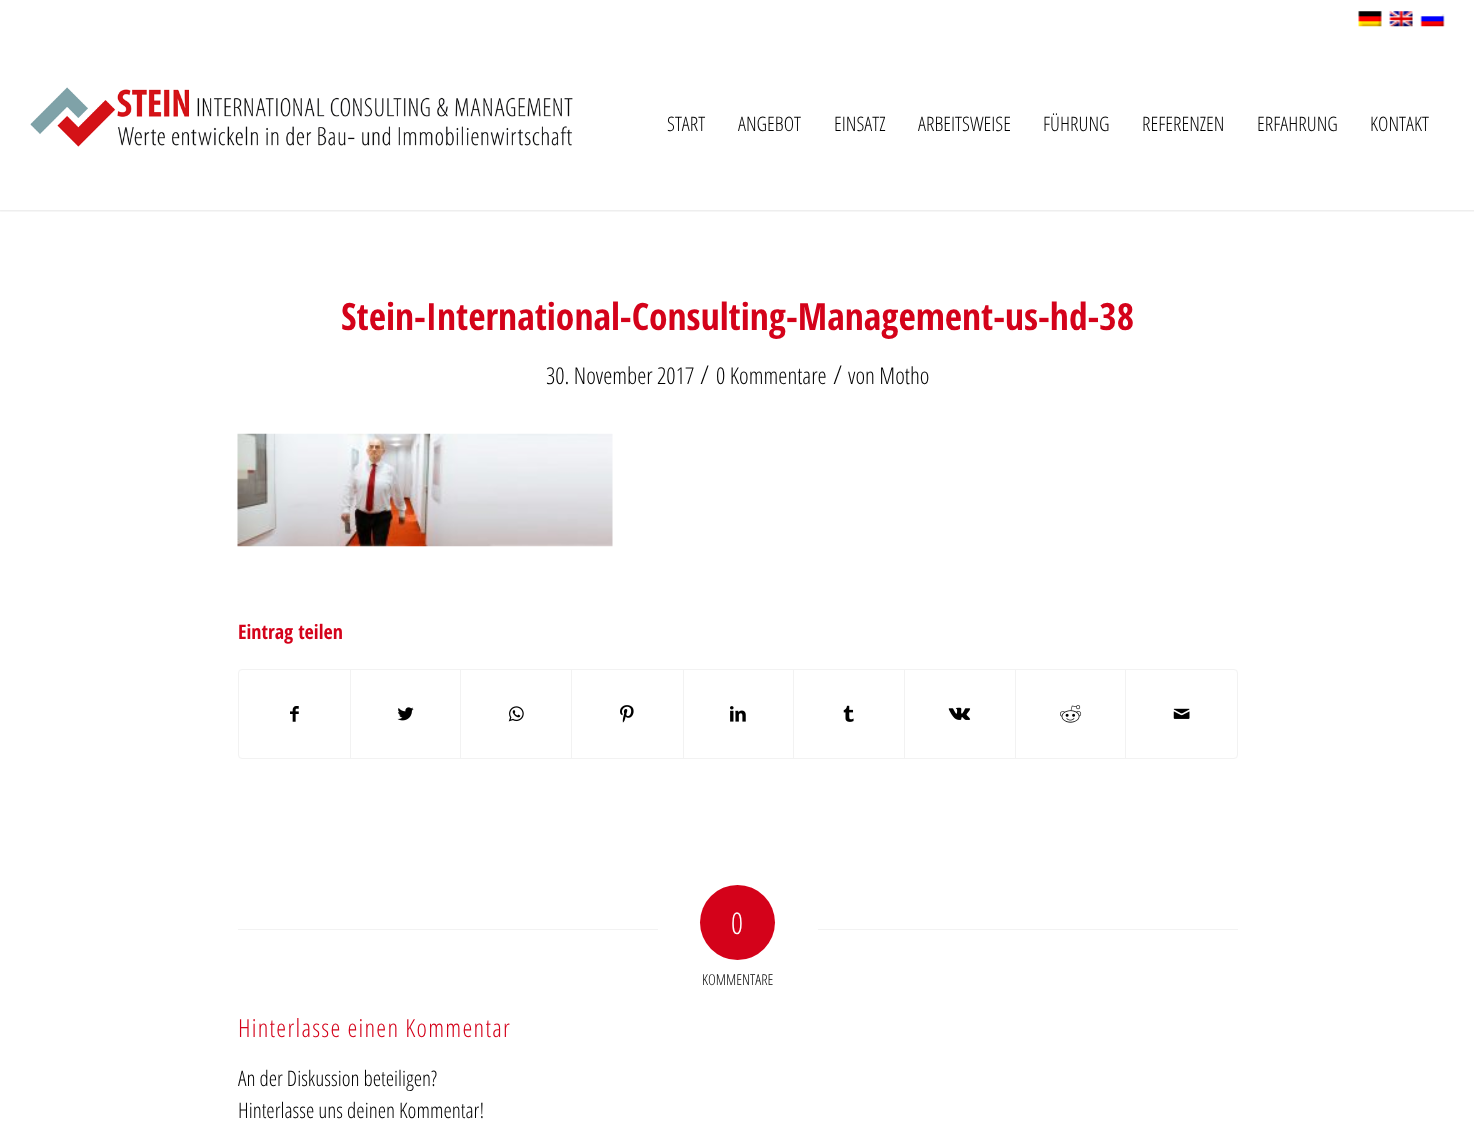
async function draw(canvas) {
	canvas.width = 1474;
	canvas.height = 1139;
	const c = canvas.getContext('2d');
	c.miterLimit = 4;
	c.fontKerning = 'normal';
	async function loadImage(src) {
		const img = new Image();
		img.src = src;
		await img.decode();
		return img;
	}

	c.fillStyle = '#fff';
	c.fillRect(0, 0, 1474, 1139);
	c.save();
	c.beginPath();
	c.rect(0, 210, 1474, 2);
	c.clip();
	c.fillStyle = '#0000001a';
	c.filter = 'blur(1px)';
	c.beginPath();
	c.rect(-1, -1, 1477, 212);
	c.fill();
	c.filter = 'none';
	c.restore();
	c.drawImage(await loadImage('img1.png'), 1358, 11, 24, 16);
	c.drawImage(await loadImage('img2.png'), 1389, 11, 24, 16);
	c.drawImage(await loadImage('img3.png'), 1420, 14, 25, 13);
	c.drawImage(await loadImage('img4.png'), 30, 87, 543, 60);
	c.font = '300 20px Open Sans Condensed';
	c.fillStyle = '#000';
	for (const [text, x, y] of [
		['START', 667, 131],
		['ANGEBOT', 738, 131],
		['EINSATZ', 834, 131],
		['ARBEITSWEISE', 918, 131],
		['FÜHRUNG', 1043, 131],
		['REFERENZEN', 1142, 131],
		['ERFAHRUNG', 1257, 131],
		['KONTAKT', 1370, 131],
	]) {
		c.fillText(text, x, y);
	}
	c.font = 'bold 37.5px Open Sans Condensed';
	c.fillStyle = '#d4021a';
	c.fillText('Stein-International-Consulting-Management-us-hd-38', 341, 330);
	c.font = '300 23.25px Open Sans Condensed';
	c.fillStyle = '#000';
	c.fillText('30. November 2017', 546, 384);
	c.font = '300 26px Open Sans Condensed';
	c.fillText('/', 700, 384);
	c.font = '300 23.25px Open Sans Condensed';
	c.fillText('0 Kommentare', 716, 384);
	c.font = '300 26px Open Sans Condensed';
	c.fillText('/', 833, 384);
	c.font = '300 23.25px Open Sans Condensed';
	c.fillText('von Motho', 848, 384);
	c.drawImage(await loadImage('img5.png'), 237, 433, 376, 114);
	c.font = 'bold 20px Open Sans Condensed';
	c.fillStyle = '#d4021a';
	c.fillText('Eintrag teilen', 238, 639);
	c.beginPath();
	c.roundRect(238.5, 669.5, 999, 89, 3.5);
	c.strokeStyle = '#f2f2f2';
	c.stroke();
	c.drawImage(await loadImage('img6.png'), 290, 706, 9, 16);
	c.fillStyle = '#f2f2f2';
	c.fillRect(350, 670, 1, 88);
	c.drawImage(await loadImage('img7.png'), 397, 707, 17, 14);
	c.fillRect(460, 670, 1, 88);
	c.drawImage(await loadImage('img8.png'), 508, 706, 16, 16);
	c.fillRect(571, 670, 1, 88);
	c.drawImage(await loadImage('img9.png'), 620, 705, 14, 18);
	c.fillRect(683, 670, 1, 88);
	c.drawImage(await loadImage('img10.png'), 730, 706, 16, 16);
	c.fillRect(793, 670, 1, 88);
	c.drawImage(await loadImage('img11.png'), 843, 705, 11, 17);
	c.fillRect(904, 670, 1, 88);
	c.drawImage(await loadImage('img12.png'), 948, 707, 23, 13);
	c.fillRect(1015, 670, 1, 88);
	c.drawImage(await loadImage('img13.png'), 1060, 705, 22, 18);
	c.fillRect(1125, 670, 1, 88);
	c.drawImage(await loadImage('img14.png'), 1173, 708, 17, 11);
	c.fillRect(238, 929, 420, 1);
	c.fillStyle = '#d4021a';
	c.beginPath();
	c.arc(737.5, 922.5, 37.5, 0, 2 * Math.PI);
	c.fill();
	c.font = '300 30px Open Sans Condensed';
	c.fillStyle = '#fff';
	c.fillText('0', 731, 934);
	c.fillStyle = '#f2f2f2';
	c.fillRect(818, 929, 420, 1);
	c.font = '300 15px Open Sans Condensed';
	c.fillStyle = '#000';
	c.fillText('KOMMENTARE', 702, 985);
	c.letterSpacing = '1.25px';
	c.font = '300 25px Open Sans Condensed';
	c.fillStyle = '#d4021a';
	c.fillText('Hinterlasse einen Kommentar', 238, 1037);
	c.letterSpacing = '0px';
	c.font = '300 21.25px Open Sans Condensed';
	c.fillStyle = '#000';
	c.fillText('An der Diskussion beteiligen?', 238, 1086);
	c.fillText('Hinterlasse uns deinen Kommentar!', 238, 1118);
}

draw(document.querySelector('canvas'));
